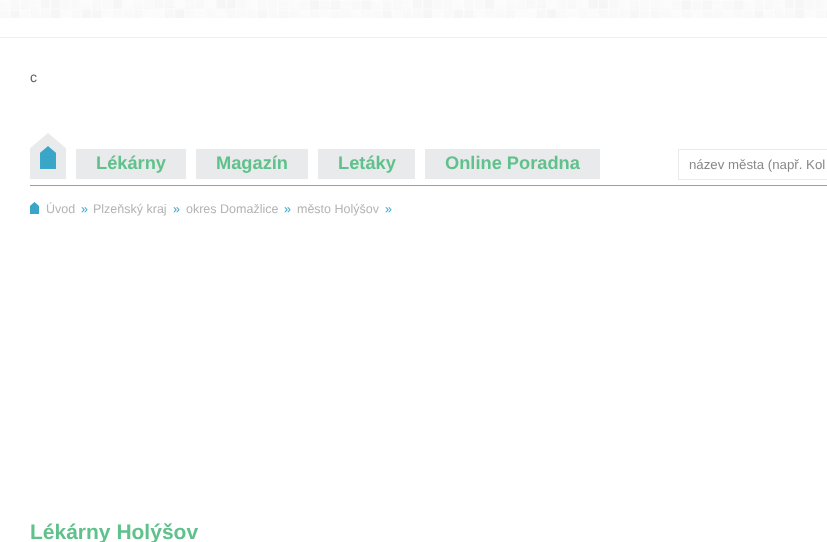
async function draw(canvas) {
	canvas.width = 827;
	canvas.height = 542;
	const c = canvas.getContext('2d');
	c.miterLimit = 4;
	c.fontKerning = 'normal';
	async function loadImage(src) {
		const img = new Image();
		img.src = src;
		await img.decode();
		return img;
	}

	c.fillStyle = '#fff';
	c.fillRect(0, 0, 827, 542);
	c.drawImage(await loadImage('img1.png'), 0, 0, 827, 18);
	c.fillStyle = '#efefef';
	c.fillRect(0, 37, 827, 1);
	c.font = '14px Liberation Sans';
	c.fillStyle = '#5e6066';
	c.fillText('c', 30, 82);
	c.fillStyle = '#60c18c';
	c.fillRect(30, 185, 797, 1);
	c.drawImage(await loadImage('img2.png'), 30, 133, 36, 46);
	c.fillStyle = '#e9eaeb';
	c.fillRect(76, 149, 110, 30);
	c.font = 'bold 18.25px Liberation Sans';
	c.fillStyle = '#60c18c';
	c.fillText('Lékárny', 96, 169);
	c.fillStyle = '#e9eaeb';
	c.fillRect(196, 149, 112, 30);
	c.fillStyle = '#60c18c';
	c.fillText('Magazín', 216, 169);
	c.fillStyle = '#e9eaeb';
	c.fillRect(318, 149, 97, 30);
	c.fillStyle = '#60c18c';
	c.fillText('Letáky', 338, 169);
	c.fillStyle = '#e9eaeb';
	c.fillRect(425, 149, 175, 30);
	c.fillStyle = '#60c18c';
	c.fillText('Online Poradna', 445, 169);
	c.strokeStyle = '#eaeaeb';
	c.strokeRect(678.5, 149.5, 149, 30);
	c.font = '13.25px Liberation Sans';
	c.fillStyle = '#888';
	c.fillText('název města (např. Kol', 689, 169);
	c.drawImage(await loadImage('img3.png'), 30, 202, 9, 12);
	c.font = '12.5px Liberation Sans';
	c.fillStyle = '#b4b4b4';
	c.fillText('Úvod', 46, 213);
	c.fillStyle = '#39a6c8';
	c.fillText('»', 81, 213);
	c.fillStyle = '#b4b4b4';
	c.fillText('Plzeňský kraj', 93, 213);
	c.fillStyle = '#39a6c8';
	c.fillText('»', 173, 213);
	c.fillStyle = '#b4b4b4';
	c.fillText('okres Domažlice', 186, 213);
	c.fillStyle = '#39a6c8';
	c.fillText('»', 284, 213);
	c.fillStyle = '#b4b4b4';
	c.fillText('město Holýšov', 297, 213);
	c.fillStyle = '#39a6c8';
	c.fillText('»', 385, 213);
	c.font = 'bold 21px Liberation Sans';
	c.fillStyle = '#60c18c';
	c.fillText('Lékárny Holýšov', 30, 539);
}

draw(document.querySelector('canvas'));
